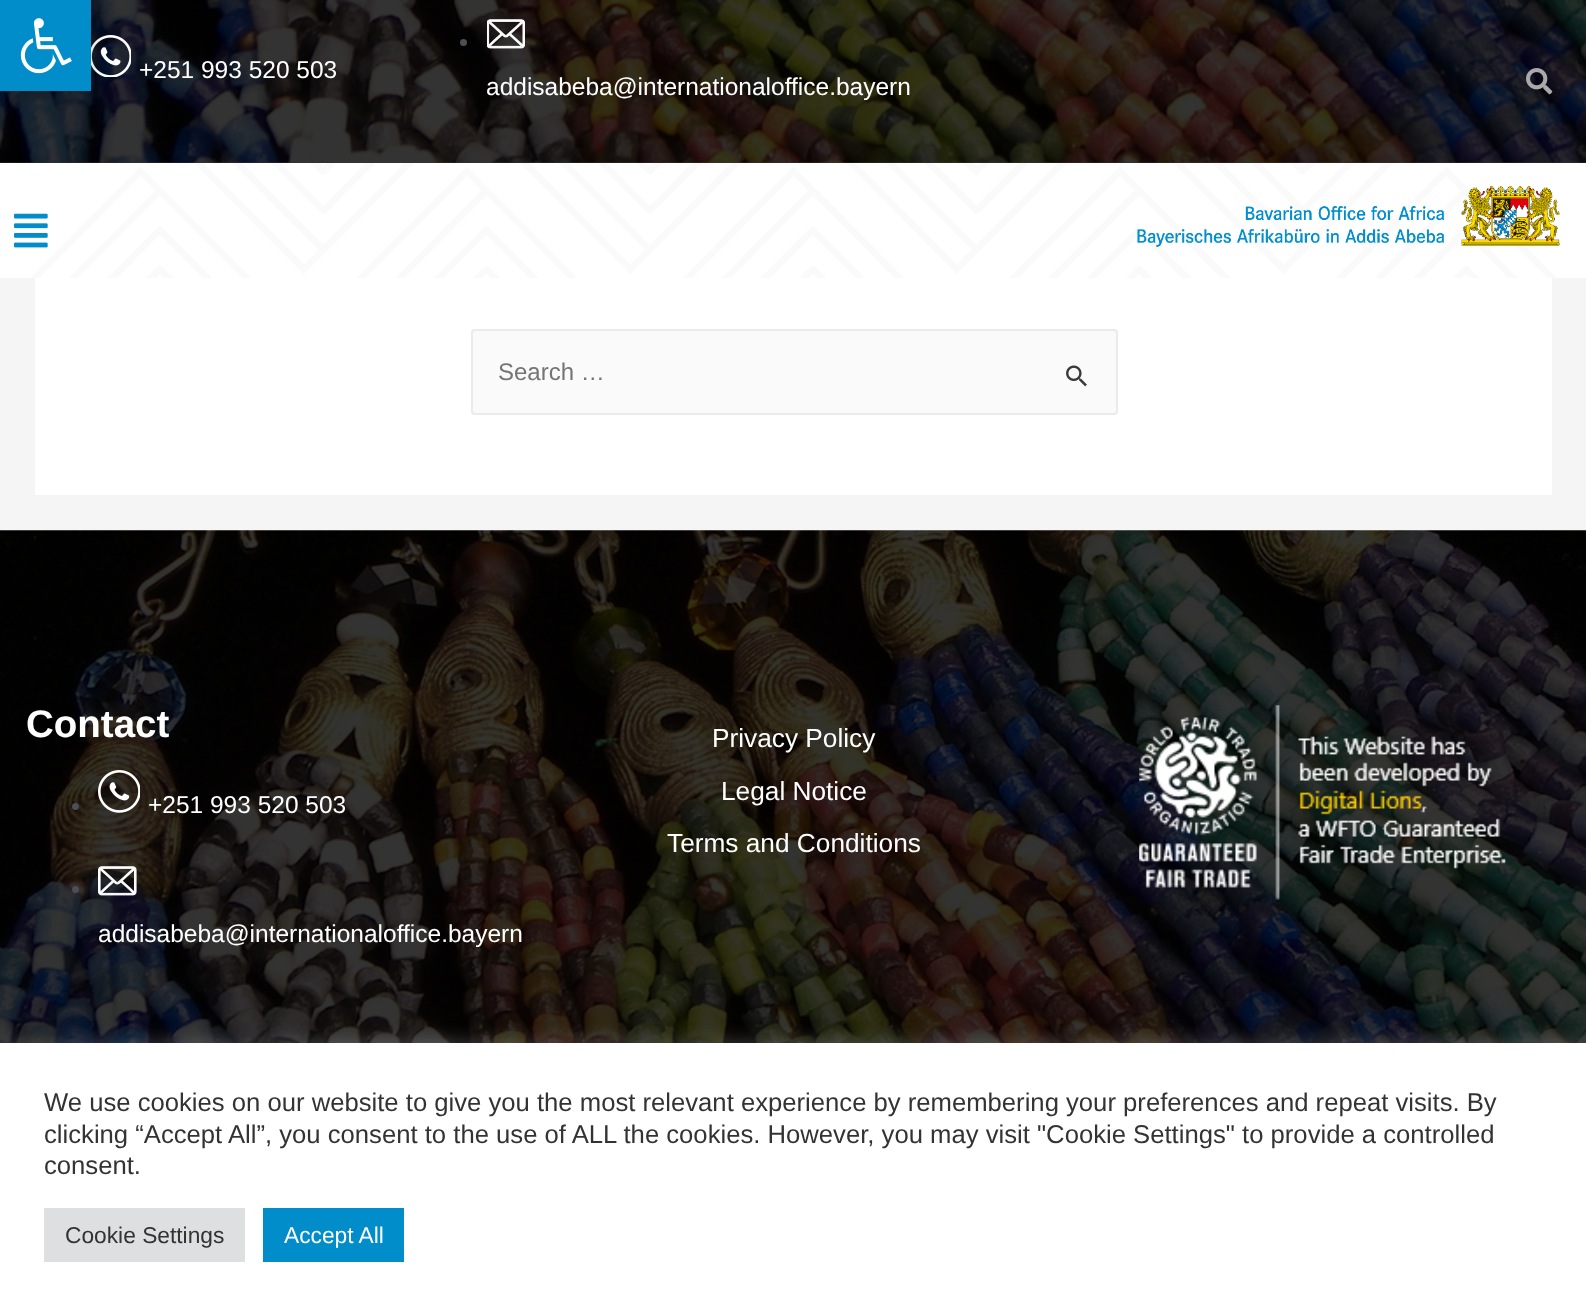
async function draw(canvas) {
	canvas.width = 1586;
	canvas.height = 1313;
	const c = canvas.getContext('2d');
	c.miterLimit = 4;
	c.fontKerning = 'normal';
	async function loadImage(src) {
		const img = new Image();
		img.src = src;
		await img.decode();
		return img;
	}

	c.fillStyle = '#f5f5f5';
	c.fillRect(0, 0, 1586, 1313);
	c.fillStyle = '#fff';
	c.fillRect(35, 162, 1517, 333);
	c.drawImage(await loadImage('img2.png'), 0, 0, 1586, 163);
	c.fillStyle = '#000000cc';
	c.fillRect(0, 0, 1586, 163);
	c.drawImage(await loadImage('img3.png'), 91, 35, 40, 42);
	c.fillStyle = '#00000033';
	c.filter = 'blur(9px)';
	c.beginPath();
	c.rect(0, 0, 91, 91);
	c.fill();
	c.filter = 'none';
	c.fillStyle = '#008dc9';
	c.fillRect(0, 0, 91, 91);
	c.drawImage(await loadImage('img1.png'), 20, 18, 52, 56);
	c.font = '24.5px Liberation Sans';
	c.fillStyle = '#fff';
	c.fillText('+251 993 520 503', 139, 78);
	c.fillStyle = '#4b4f58';
	c.beginPath();
	c.arc(463.5, 42.5, 3.5, 0, 2 * Math.PI);
	c.fill();
	c.drawImage(await loadImage('img4.png'), 487, 19, 38, 30);
	c.fillStyle = '#fff';
	c.fillText('addisabeba@internationaloffice.bayern', 486, 95);
	c.drawImage(await loadImage('img5.png'), 1526, 68, 27, 27);
	c.fillRect(0, 163, 1586, 115);
	c.drawImage(await loadImage('img6.png'), 31, 163, 1525, 115);
	c.drawImage(await loadImage('img7.png'), 14, 213, 34, 35);
	c.drawImage(await loadImage('img8.png'), 1137, 186, 423, 61);
	c.fillStyle = '#fafafa';
	c.beginPath();
	c.roundRect(472, 330, 645, 84, 3);
	c.fill();
	c.strokeStyle = '#eaeaea';
	c.lineWidth = 2;
	c.stroke();
	c.font = '24px Liberation Sans';
	c.fillStyle = '#757575';
	c.fillText('Search …', 498, 380);
	c.drawImage(await loadImage('img9.png'), 1066, 365, 21, 22);
	c.drawImage(await loadImage('img10.png'), 0, 530, 1586, 513);
	c.font = 'bold 38.5px Liberation Sans';
	c.fillStyle = '#fff';
	c.fillText('Contact', 26, 737);
	c.fillStyle = '#4b4f58';
	c.beginPath();
	c.arc(75.5, 806.5, 3.5, 0, 2 * Math.PI);
	c.fill();
	c.drawImage(await loadImage('img11.png'), 98, 770, 42, 43);
	c.font = '24.5px Liberation Sans';
	c.fillStyle = '#fff';
	c.fillText('+251 993 520 503', 148, 813);
	c.fillStyle = '#4b4f58';
	c.beginPath();
	c.arc(75.5, 889.5, 3.5, 0, 2 * Math.PI);
	c.fill();
	c.drawImage(await loadImage('img12.png'), 98, 866, 39, 30);
	c.fillStyle = '#fff';
	c.fillText('addisabeba@internationaloffice.bayern', 98, 942);
	c.font = '26.25px Liberation Sans';
	for (const [text, x, y] of [
		['Privacy Policy', 712, 747],
		['Legal Notice', 721, 800],
		['Terms and Conditions', 667, 852],
	]) {
		c.fillText(text, x, y);
	}
	c.drawImage(await loadImage('img13.png'), 1139, 705, 367, 195);
	c.fillStyle = '#acabab4d';
	c.filter = 'blur(9px)';
	c.beginPath();
	c.rect(0, 1041, 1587, 272);
	c.fill();
	c.filter = 'none';
	c.fillStyle = '#fff';
	c.fillRect(0, 1043, 1586, 270);
	c.font = '25.67px Liberation Sans';
	c.fillStyle = '#333';
	for (const [text, x, y] of [
		['We use cookies on our website to give you the most relevant experience by remembering your preferences and repeat visits. By', 44, 1111],
		['clicking “Accept All”, you consent to the use of ALL the cookies. However, you may visit "Cookie Settings" to provide a controlled', 44, 1143],
		['consent.', 44, 1174],
	]) {
		c.fillText(text, x, y);
	}
	c.fillStyle = '#dedfe0';
	c.fillRect(44, 1208, 201, 54);
	c.font = '22.75px Liberation Sans';
	c.fillStyle = '#333';
	c.fillText('Cookie Settings', 65, 1243);
	c.fillStyle = '#008dc9';
	c.fillRect(263, 1208, 141, 54);
	c.fillStyle = '#fff';
	c.fillText('Accept All', 284, 1243);
}

draw(document.querySelector('canvas'));
